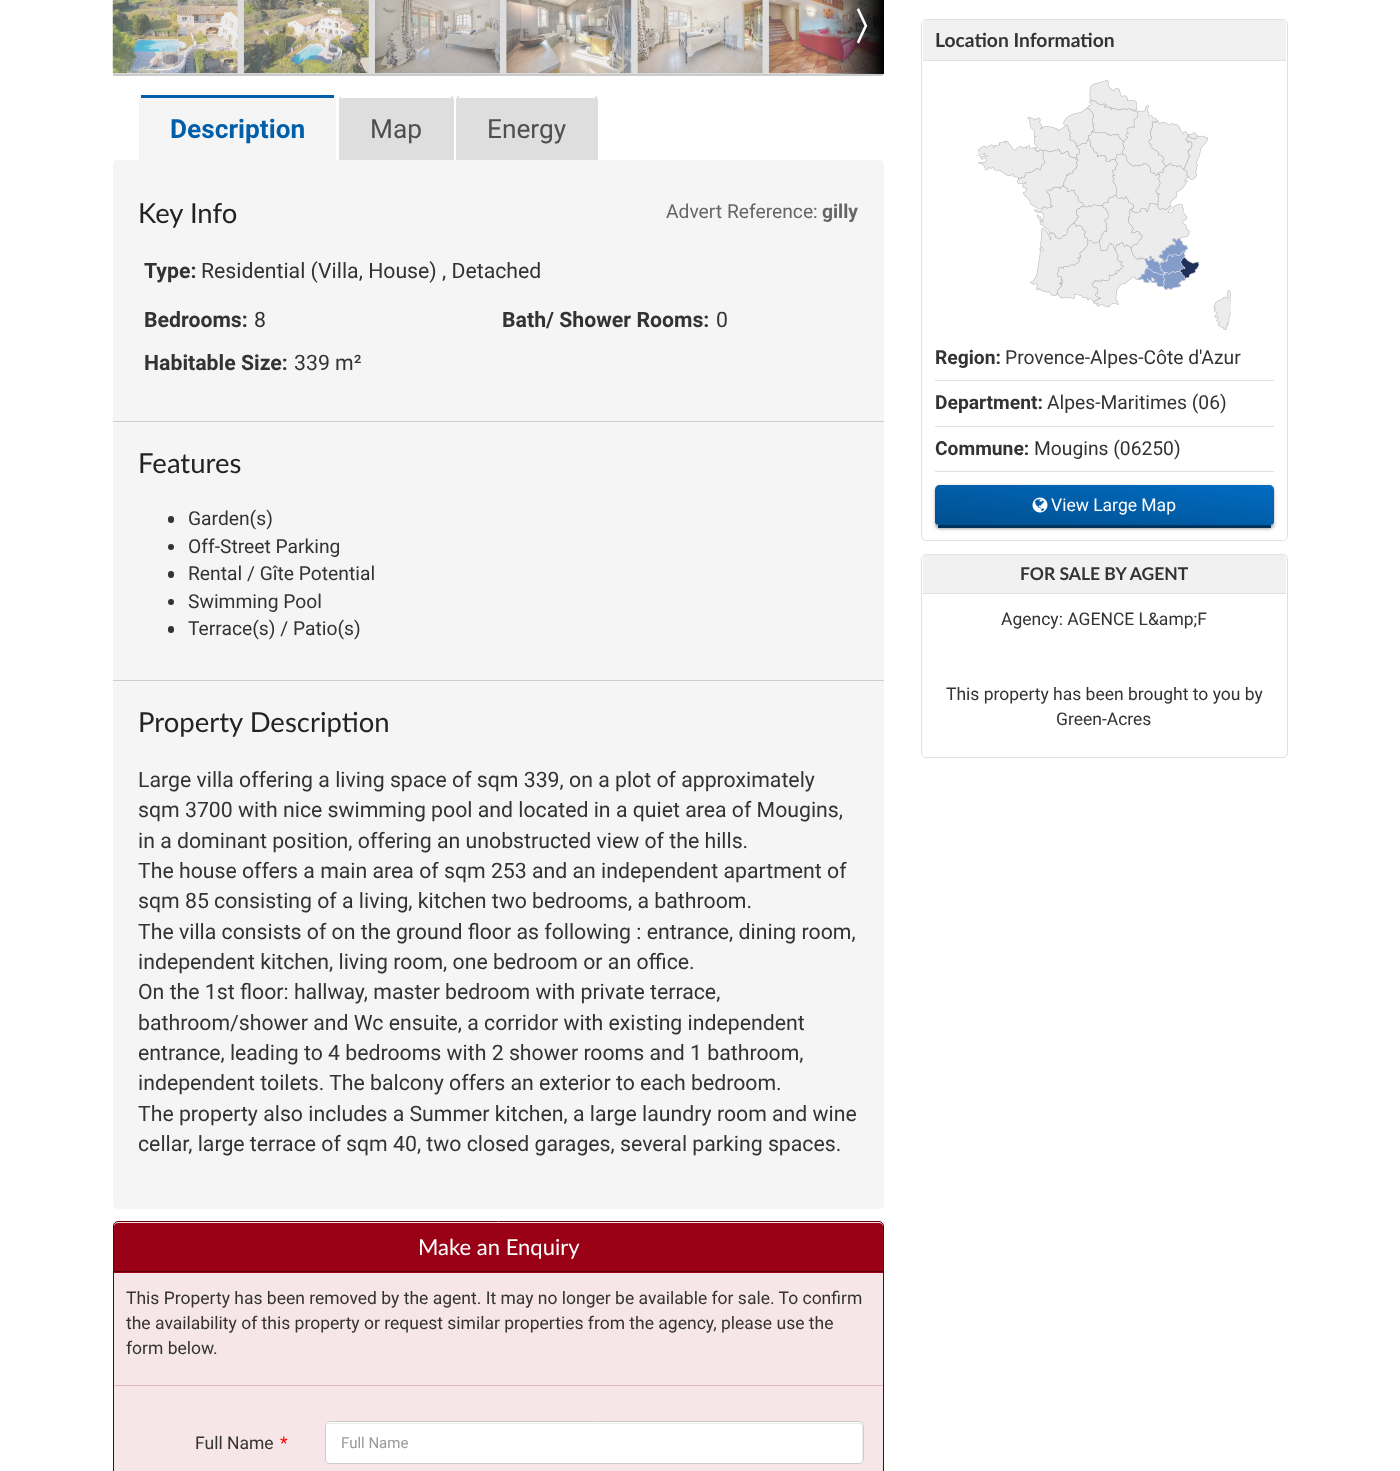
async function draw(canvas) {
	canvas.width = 1400;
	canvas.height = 1471;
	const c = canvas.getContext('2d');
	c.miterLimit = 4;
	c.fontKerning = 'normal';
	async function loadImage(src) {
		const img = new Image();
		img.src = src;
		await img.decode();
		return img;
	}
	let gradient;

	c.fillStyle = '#fff';
	c.fillRect(0, 0, 1400, 1471);
	c.fillStyle = '#ddd';
	c.fillRect(113, 0, 770, 74);
	c.fillStyle = '#ccc';
	c.fillRect(113, 74, 770, 2);
	c.drawImage(await loadImage('img1.png'), 112, 0, 126, 74);
	c.drawImage(await loadImage('img2.png'), 243, 0, 126, 74);
	c.drawImage(await loadImage('img3.png'), 375, 0, 125, 74);
	c.drawImage(await loadImage('img4.png'), 506, 0, 126, 74);
	c.drawImage(await loadImage('img5.png'), 637, 0, 126, 74);
	c.drawImage(await loadImage('img6.png'), 768, 0, 115, 74);
	gradient = c.createLinearGradient(884, 27, 821, 27);
	gradient.addColorStop(0, '#000');
	gradient.addColorStop(1, '#00000000');
	c.fillStyle = gradient;
	c.fillRect(822, 0, 62, 74);
	c.font = 'bold 38px WenQuanYi Zen Hei';
	c.fillStyle = '#fff';
	c.fillText('〉', 852, 40);
	c.fillStyle = '#f5f5f5';
	c.beginPath();
	c.roundRect(139, 95, 197, 65, [5, 5, 0, 0]);
	c.fill();
	c.fillStyle = '#015ea9';
	c.fillRect(141, 95, 193, 3);
	c.font = 'bold 26.25px Roboto';
	c.fillText('Description', 170, 138);
	c.fillStyle = '#dedede';
	c.beginPath();
	c.roundRect(339, 95, 115, 65, [5, 5, 0, 0]);
	c.fill();
	c.fillStyle = '#fff';
	c.fillRect(341, 95, 110, 3);
	c.font = '26.25px Roboto';
	c.fillStyle = '#4f4f4f';
	c.fillText('Map', 370, 138);
	c.fillStyle = '#dedede';
	c.beginPath();
	c.roundRect(456, 95, 142, 65, [5, 5, 0, 0]);
	c.fill();
	c.fillStyle = '#fff';
	c.fillRect(459, 95, 136, 3);
	c.fillStyle = '#4f4f4f';
	c.fillText('Energy', 487, 138);
	c.fillStyle = '#f5f5f5';
	c.beginPath();
	c.roundRect(113, 160, 771, 1049, 5);
	c.fill();
	c.fillStyle = '#cdcdcd';
	c.fillRect(113, 421, 771, 1);
	c.font = '27.5px Lato';
	c.fillStyle = '#232323';
	c.fillText('Key Info', 138, 223);
	c.font = '19.25px Roboto';
	c.fillStyle = '#666';
	c.fillText('Advert Reference:', 666, 218);
	c.font = 'bold 19.25px Roboto';
	c.fillText('gilly', 822, 218);
	c.font = 'bold 21.25px Roboto';
	c.fillStyle = '#333';
	c.fillText('Type:', 144, 278);
	c.font = '21.25px Roboto';
	c.fillText('Residential (Villa, House) , Detached', 201, 278);
	c.font = 'bold 21.25px Roboto';
	c.fillText('Bedrooms:', 144, 327);
	c.font = '21.25px Roboto';
	c.fillText('8', 254, 327);
	c.font = 'bold 21.25px Roboto';
	c.fillText('Bath/ Shower Rooms:', 502, 327);
	c.font = '21.25px Roboto';
	c.fillText('0', 716, 327);
	c.font = 'bold 21.25px Roboto';
	c.fillText('Habitable Size:', 144, 370);
	c.font = '21.25px Roboto';
	c.fillText('339 m²', 294, 370);
	c.fillStyle = '#cdcdcd';
	c.fillRect(113, 680, 771, 1);
	c.font = '27.5px Lato';
	c.fillStyle = '#232323';
	c.fillText('Features', 138, 473);
	c.fillStyle = '#333';
	c.beginPath();
	c.roundRect(168, 516, 6, 7, 3);
	c.fill();
	c.font = '19.25px Roboto';
	c.fillText('Garden(s)', 188, 525);
	c.beginPath();
	c.arc(171, 547, 3, 0, 2 * Math.PI);
	c.fill();
	c.fillText('Off-Street Parking', 188, 553);
	c.beginPath();
	c.roundRect(168, 571, 6, 7, 3);
	c.fill();
	c.fillText('Rental / Gîte Potential', 188, 580);
	c.beginPath();
	c.arc(171, 602, 3, 0, 2 * Math.PI);
	c.fill();
	c.fillText('Swimming Pool', 188, 608);
	c.beginPath();
	c.roundRect(168, 626, 6, 7, 3);
	c.fill();
	c.fillText('Terrace(s) / Patio(s)', 188, 635);
	c.font = '27.5px Lato';
	c.fillStyle = '#232323';
	c.fillText('Property Description', 138, 732);
	c.font = '21.25px Roboto';
	c.fillStyle = '#333';
	for (const [text, x, y] of [
		['Large villa offering a living space of sqm 339, on a plot of approximately', 138, 787],
		['sqm 3700 with nice swimming pool and located in a quiet area of Mougins,', 138, 817],
		['in a dominant position, offering an unobstructed view of the hills.', 138, 848],
		['The house offers a main area of sqm 253 and an independent apartment of', 138, 878],
		['sqm 85 consisting of a living, kitchen two bedrooms, a bathroom.', 138, 908],
		['The villa consists of on the ground floor as following : entrance, dining room,', 138, 939],
		['independent kitchen, living room, one bedroom or an office.', 138, 969],
		['On the 1st floor: hallway, master bedroom with private terrace,', 138, 999],
		['bathroom/shower and Wc ensuite, a corridor with existing independent', 138, 1030],
		['entrance, leading to 4 bedrooms with 2 shower rooms and 1 bathroom,', 138, 1060],
		['independent toilets. The balcony offers an exterior to each bedroom.', 138, 1090],
		['The property also includes a Summer kitchen, a large laundry room and wine', 138, 1121],
		['cellar, large terrace of sqm 40, two closed garages, several parking spaces.', 138, 1151],
	]) {
		c.fillText(text, x, y);
	}
	c.fillStyle = '#f7e6e8';
	c.beginPath();
	c.roundRect(113.5, 1221.5, 770, 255, 4.5);
	c.fill();
	c.strokeStyle = '#5d010d';
	c.stroke();
	c.fillStyle = '#9a0116';
	c.beginPath();
	c.roundRect(114, 1223, 769, 50, [4, 4, 0, 0]);
	c.fill();
	c.fillStyle = '#5d010d';
	c.fillRect(114, 1271, 769, 1);
	c.font = '22px Lato';
	c.fillStyle = '#fff';
	c.fillText('Make an Enquiry', 418, 1255);
	c.font = '17.5px Roboto';
	c.fillStyle = '#333';
	for (const [text, x, y] of [
		['This Property has been removed by the agent. It may no longer be available for sale. To confirm', 126, 1304],
		['the availability of this property or request similar properties from the agency, please use the', 126, 1329],
		['form below.', 126, 1354],
	]) {
		c.fillText(text, x, y);
	}
	c.fillStyle = '#e7b8be';
	c.fillRect(114, 1385, 769, 1);
	c.fillStyle = '#333';
	c.fillText('Full Name', 195, 1449);
	c.fillStyle = '#f00';
	c.fillText('*', 280, 1449);
	c.fillStyle = '#fff';
	c.beginPath();
	c.roundRect(325, 1421, 539, 43, 5);
	c.fill();
	c.fillStyle = '#ececec';
	c.beginPath();
	c.moveTo(330, 1424);
	c.lineTo(859, 1424);
	c.bezierCurveTo(861, 1424, 862, 1425, 862, 1428);
	c.lineTo(862, 1462);
	c.lineTo(863, 1460);
	c.lineTo(863, 1425);
	c.bezierCurveTo(862, 1424, 861, 1423, 860, 1423);
	c.lineTo(329, 1423);
	c.bezierCurveTo(327, 1424, 326, 1426, 326, 1428);
	c.bezierCurveTo(326, 1425, 328, 1424, 330, 1424);
	c.closePath();
	c.fill();
	c.beginPath();
	c.roundRect(325.5, 1421.5, 538, 42, 4.5);
	c.strokeStyle = '#ccc';
	c.stroke();
	c.font = '15px Roboto';
	c.fillStyle = '#999';
	c.fillText('Full Name', 341, 1448);
	c.beginPath();
	c.roundRect(921.5, 19.5, 366, 521, 4.5);
	c.strokeStyle = '#e1e1e1';
	c.stroke();
	c.fillStyle = '#f1f1f1';
	c.beginPath();
	c.roundRect(923, 20, 363, 41, [4, 4, 0, 0]);
	c.fill();
	c.fillStyle = '#e1e1e1';
	c.fillRect(923, 60, 363, 1);
	c.font = 'bold 19.25px Lato';
	c.fillStyle = '#333';
	c.fillText('Location Information', 935, 47);
	c.drawImage(await loadImage('img7.png'), 978, 80, 253, 250);
	c.fillStyle = '#e1e1e1';
	c.fillRect(935, 380, 339, 1);
	c.font = 'bold 19.25px Roboto';
	c.fillStyle = '#333';
	c.fillText('Region:', 935, 364);
	c.font = '19.25px Roboto';
	c.fillText('Provence-Alpes-Côte d\'Azur', 1005, 364);
	c.fillStyle = '#e1e1e1';
	c.fillRect(935, 426, 339, 1);
	c.font = 'bold 19.25px Roboto';
	c.fillStyle = '#333';
	c.fillText('Department:', 935, 409);
	c.font = '19.25px Roboto';
	c.fillText('Alpes-Maritimes (06)', 1047, 409);
	c.fillStyle = '#e1e1e1';
	c.fillRect(935, 471, 339, 1);
	c.font = 'bold 19.25px Roboto';
	c.fillStyle = '#333';
	c.fillText('Commune:', 935, 455);
	c.font = '19.25px Roboto';
	c.fillText('Mougins (06250)', 1034, 455);
	c.fillStyle = '#0000003d';
	c.filter = 'blur(1px)';
	c.beginPath();
	c.roundRect(935, 486, 339, 43, 5);
	c.fill();
	c.filter = 'none';
	c.fillStyle = '#0000001f';
	c.filter = 'blur(2px)';
	c.beginPath();
	c.roundRect(935, 486, 339, 43, 5);
	c.fill();
	c.filter = 'none';
	gradient = c.createLinearGradient(1109, 466, 1100, 544);
	gradient.addColorStop(0, '#016cc2');
	gradient.addColorStop(1, '#015090');
	c.fillStyle = gradient;
	c.beginPath();
	c.moveTo(940, 485);
	c.lineTo(1269, 485);
	c.bezierCurveTo(1272, 485, 1274, 487, 1274, 490);
	c.lineTo(1274, 522);
	c.bezierCurveTo(1274, 524, 1272, 525, 1269, 525);
	c.lineTo(940, 525);
	c.bezierCurveTo(937, 525, 935, 524, 935, 522);
	c.lineTo(935, 490);
	c.bezierCurveTo(935, 487, 937, 485, 940, 485);
	c.closePath();
	c.fill();
	c.fillStyle = '#01345d';
	c.fillRect(938, 525, 333, 3);
	c.drawImage(await loadImage('img8.png'), 1032, 497, 16, 16);
	c.font = '17.5px Roboto';
	c.fillStyle = '#fff';
	c.fillText('View Large Map', 1051, 511);
	c.beginPath();
	c.roundRect(921.5, 554.5, 366, 203, 4.5);
	c.stroke();
	c.fillStyle = '#f1f1f1';
	c.beginPath();
	c.roundRect(923, 555, 363, 39, [4, 4, 0, 0]);
	c.fill();
	c.fillStyle = '#e1e1e1';
	c.fillRect(923, 593, 363, 1);
	c.font = 'bold 17.5px Lato';
	c.fillStyle = '#333';
	c.fillText('FOR SALE BY AGENT', 1020, 580);
	c.font = '17.5px Roboto';
	for (const [text, x, y] of [
		['Agency: AGENCE L&amp;F', 1001, 625],
		['This property has been brought to you by', 946, 700],
		['Green-Acres', 1056, 725],
	]) {
		c.fillText(text, x, y);
	}
}

draw(document.querySelector('canvas'));
